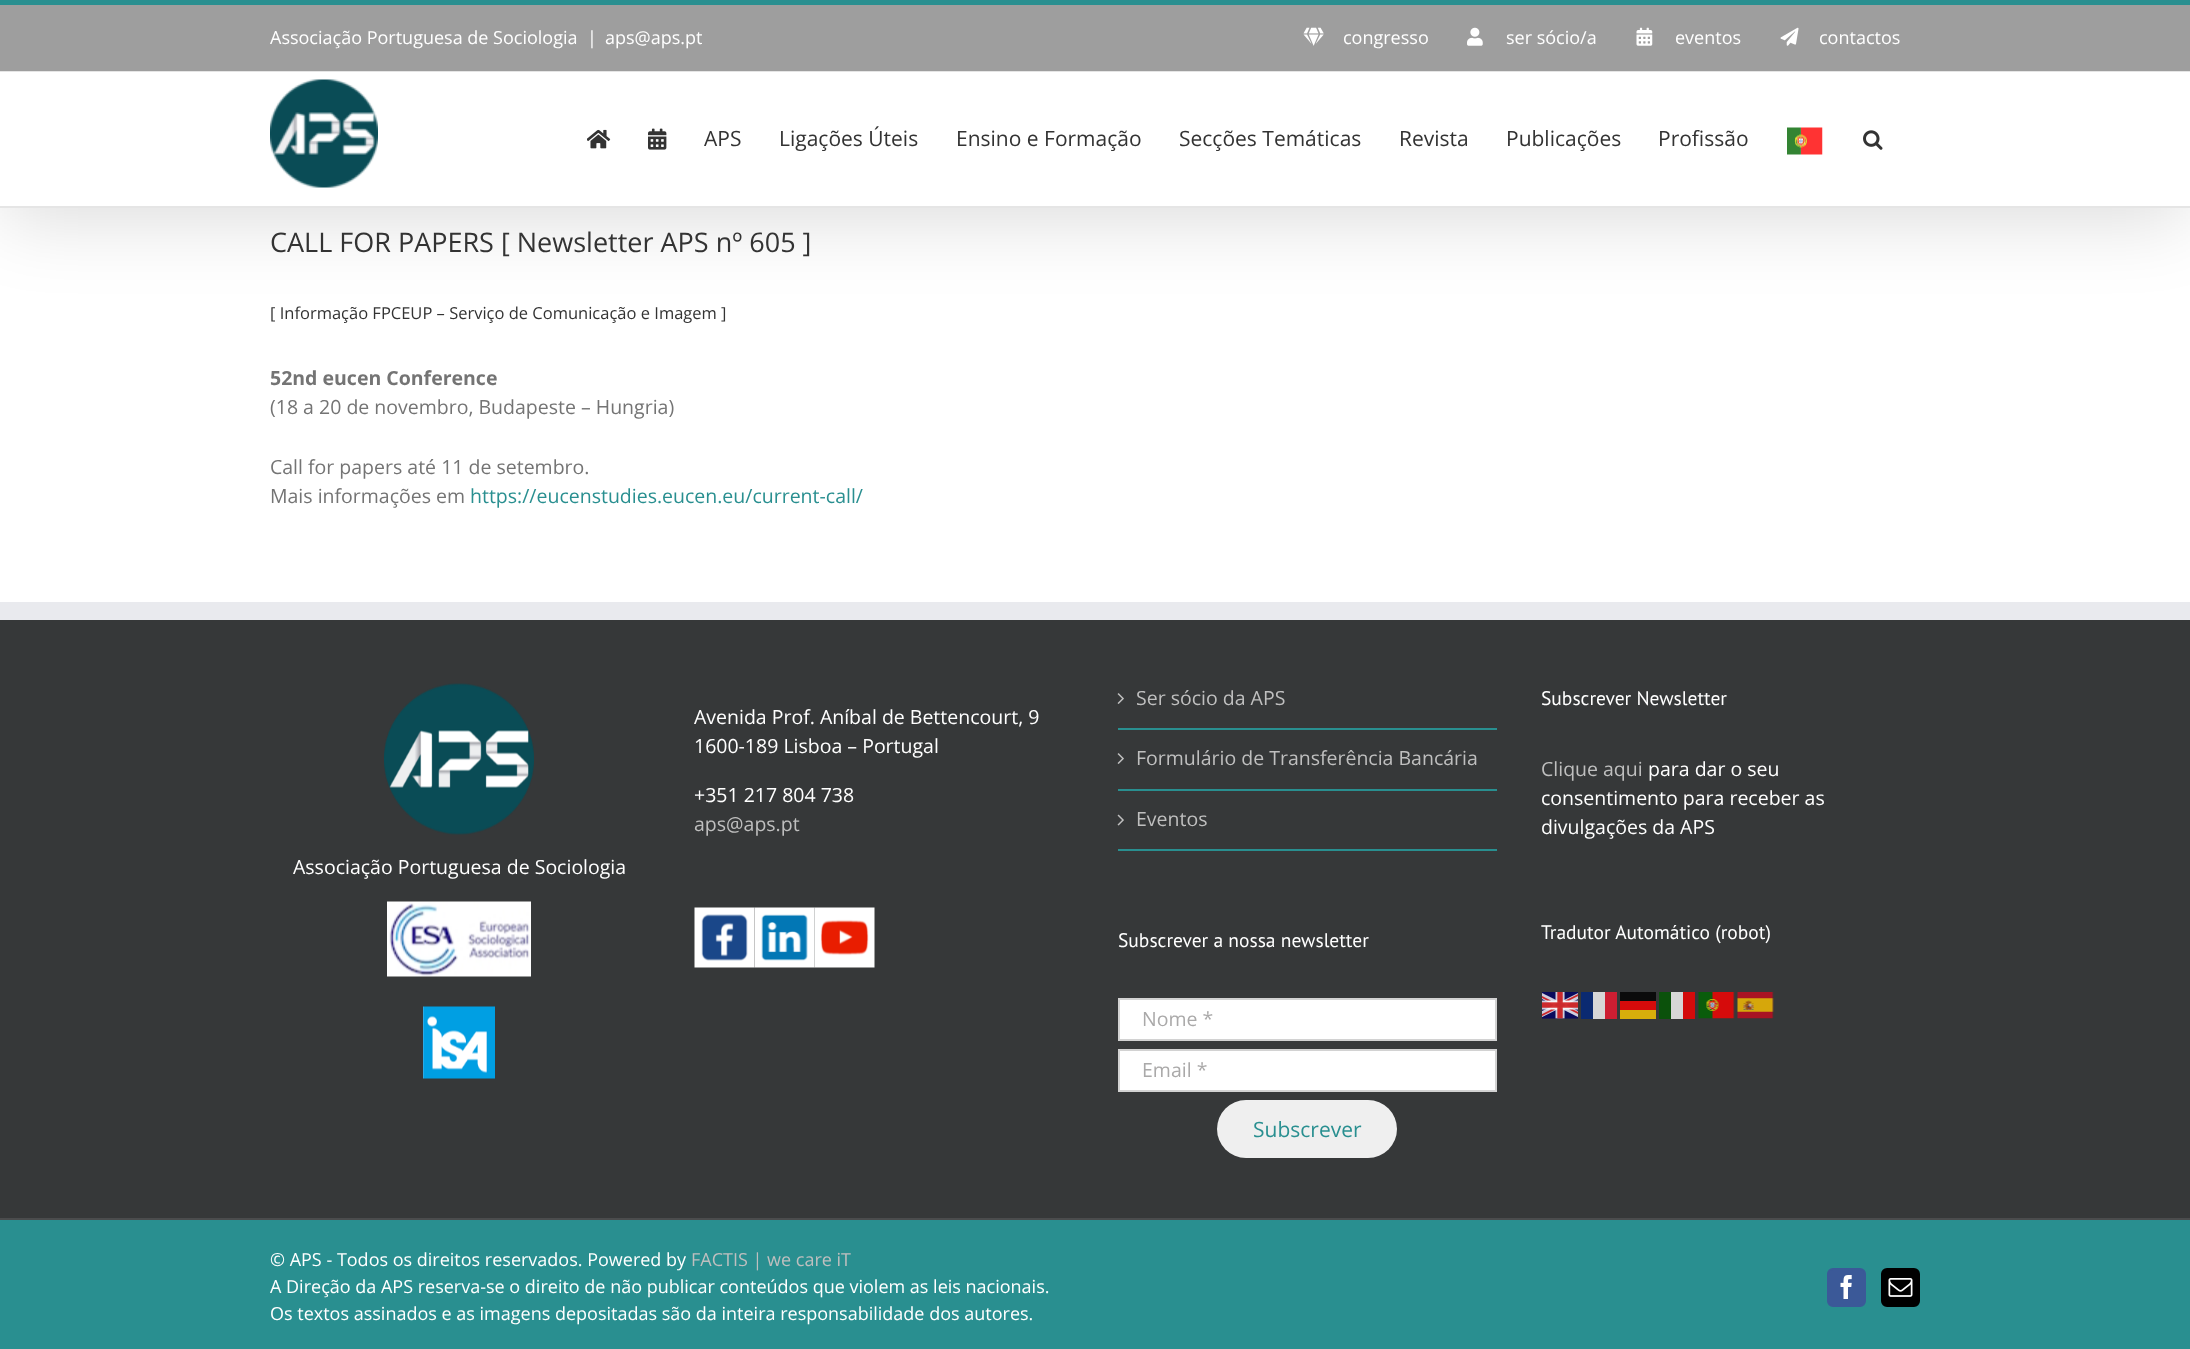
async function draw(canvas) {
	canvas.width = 2190;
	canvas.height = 1349;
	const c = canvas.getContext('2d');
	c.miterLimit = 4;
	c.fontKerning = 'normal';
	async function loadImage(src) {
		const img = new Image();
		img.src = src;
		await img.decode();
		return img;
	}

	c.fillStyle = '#fff';
	c.fillRect(0, 0, 2190, 1349);
	c.fillStyle = '#00000024';
	c.filter = 'blur(37.5px)';
	c.beginPath();
	c.rect(3, 18, 2184, 201);
	c.fill();
	c.filter = 'none';
	for (const [x, y, w, h, color] of [
		[0, 5, 2190, 66, '#9e9e9e'],
		[0, 0, 2190, 5, '#298f90'],
		[0, 71, 2190, 1, '#e5e5e5'],
	]) {
		c.fillStyle = color;
		c.fillRect(x, y, w, h);
	}
	c.font = '18px Open Sans';
	c.fillStyle = '#fff';
	for (const [text, x, y] of [
		['Associação Portuguesa de Sociologia', 270, 44],
		['|', 587, 44],
		['aps@aps.pt', 605, 44],
	]) {
		c.fillText(text, x, y);
	}
	c.drawImage(await loadImage('img1.png'), 1303, 27, 21, 19);
	c.fillText('congresso', 1343, 44);
	c.drawImage(await loadImage('img2.png'), 1467, 27, 16, 19);
	c.fillText('ser sócio/a', 1506, 44);
	c.drawImage(await loadImage('img3.png'), 1636, 27, 17, 19);
	c.fillText('eventos', 1675, 44);
	c.drawImage(await loadImage('img4.png'), 1780, 27, 19, 19);
	c.fillText('contactos', 1819, 44);
	c.fillRect(0, 72, 2190, 134);
	c.fillStyle = '#e5e5e5';
	c.fillRect(0, 206, 2190, 2);
	c.drawImage(await loadImage('img5.png'), 270, 79, 108, 109);
	c.drawImage(await loadImage('img6.png'), 587, 129, 24, 20);
	c.drawImage(await loadImage('img7.png'), 648, 128, 19, 22);
	c.font = '21px Open Sans';
	c.fillStyle = '#333';
	for (const [text, x, y] of [
		['APS', 704, 146],
		['Ligações Úteis', 779, 146],
		['Ensino e Formação', 956, 146],
		['Secções Temáticas', 1179, 146],
		['Revista', 1399, 146],
		['Publicações', 1506, 146],
		['Profissão', 1658, 146],
	]) {
		c.fillText(text, x, y);
	}
	c.drawImage(await loadImage('img8.png'), 1787, 127, 36, 28);
	c.drawImage(await loadImage('img9.png'), 1863, 130, 20, 20);
	c.font = '27px Open Sans';
	c.fillText('CALL FOR PAPERS [ Newsletter APS nº 605 ]', 270, 252);
	c.font = '16.5px Open Sans';
	c.fillText('[ Informação FPCEUP – Serviço de Comunicação e Imagem ]', 270, 319);
	c.font = 'bold 19.5px Open Sans';
	c.fillStyle = '#747474';
	c.fillText('52nd eucen Conference', 270, 385);
	c.font = '19.5px Open Sans';
	for (const [text, x, y] of [
		['(18 a 20 de novembro, Budapeste – Hungria)', 270, 414],
		['Call for papers até 11 de setembro.', 270, 474],
		['Mais informações em', 270, 503],
	]) {
		c.fillText(text, x, y);
	}
	c.fillStyle = '#298f90';
	c.fillText('https://eucenstudies.eucen.eu/current-call/', 470, 503);
	c.fillStyle = '#363839';
	c.fillRect(0, 620, 2190, 598);
	c.fillStyle = '#e9eaee';
	c.fillRect(0, 602, 2190, 18);
	c.fillStyle = '#fff';
	for (const [text, x, y] of [
		['Avenida Prof. Aníbal de Bettencourt, 9', 694, 724],
		['1600-189 Lisboa – Portugal', 694, 753],
		['+351 217 804 738', 694, 802],
	]) {
		c.fillText(text, x, y);
	}
	c.fillStyle = '#bfbfbf';
	c.fillText('aps@aps.pt', 694, 831);
	c.drawImage(await loadImage('img10.png'), 694, 907, 61, 61);
	c.drawImage(await loadImage('img11.png'), 754, 907, 61, 61);
	c.drawImage(await loadImage('img12.png'), 814, 907, 61, 61);
	c.fillStyle = '#298f90';
	c.fillRect(1118, 728, 379, 2);
	c.drawImage(await loadImage('img13.png'), 1117, 693, 7, 11);
	c.fillStyle = '#bfbfbf';
	c.fillText('Ser sócio da APS', 1136, 705);
	c.fillStyle = '#298f90';
	c.fillRect(1118, 789, 379, 2);
	c.drawImage(await loadImage('img13.png'), 1117, 753, 7, 11);
	c.fillStyle = '#bfbfbf';
	c.fillText('Formulário de Transferência Bancária', 1136, 765);
	c.fillStyle = '#298f90';
	c.fillRect(1118, 849, 379, 2);
	c.drawImage(await loadImage('img14.png'), 1117, 814, 7, 12);
	c.fillStyle = '#bfbfbf';
	c.fillText('Eventos', 1136, 826);
	c.font = '19.5px PT Sans';
	c.fillStyle = '#fff';
	c.fillText('Subscrever a nossa newsletter', 1118, 947);
	c.beginPath();
	c.rect(1119, 999, 377, 41);
	c.fill();
	c.strokeStyle = '#d2d2d2';
	c.lineWidth = 2;
	c.stroke();
	c.font = '19.5px Open Sans';
	c.fillStyle = '#aaa9a9';
	c.fillText('Nome *', 1142, 1026);
	c.fillStyle = '#fff';
	c.beginPath();
	c.rect(1119, 1050, 377, 41);
	c.fill();
	c.stroke();
	c.fillStyle = '#aaa9a9';
	c.fillText('Email *', 1142, 1077);
	c.fillStyle = '#efefef';
	c.beginPath();
	c.roundRect(1217, 1100, 180, 58, 29);
	c.fill();
	c.font = '21px Open Sans';
	c.fillStyle = '#298f90';
	c.fillText('Subscrever', 1253, 1137);
	c.font = '19.5px PT Sans';
	c.fillStyle = '#fff';
	c.fillText('Subscrever Newsletter', 1541, 705);
	c.font = '19.5px Open Sans';
	c.fillStyle = '#bfbfbf';
	c.fillText('Clique aqui', 1541, 776);
	c.fillStyle = '#fff';
	for (const [text, x, y] of [
		['para dar o seu', 1648, 776],
		['consentimento para receber as', 1541, 805],
		['divulgações da APS', 1541, 834],
	]) {
		c.fillText(text, x, y);
	}
	c.font = '19.5px PT Sans';
	c.fillText('Tradutor Automático (robot)', 1541, 939);
	c.drawImage(await loadImage('img15.png'), 1542, 992, 36, 27);
	for (const [x, y, w, h, color] of [
		[1581, 992, 12, 27, '#0b2a71'],
		[1593, 992, 12, 27, '#d7d7d7'],
		[1605, 992, 12, 27, '#cd1e32'],
		[1620, 992, 36, 9, '#0b0b0b'],
		[1659, 992, 12, 27, '#0b510b'],
		[1671, 992, 12, 27, '#d7d7d7'],
		[1683, 992, 12, 27, '#d40b0b'],
	]) {
		c.fillStyle = color;
		c.fillRect(x, y, w, h);
	}
	c.drawImage(await loadImage('img16.png'), 1698, 992, 37, 27);
	c.drawImage(await loadImage('img17.png'), 1737, 992, 37, 27);
	c.fillStyle = '#d70b0b';
	c.fillRect(1620, 1001, 36, 9);
	c.fillStyle = '#d7ae0b';
	c.fillRect(1620, 1010, 36, 9);
	c.drawImage(await loadImage('img18.png'), 384, 683, 150, 152);
	c.font = '19.5px Open Sans';
	c.fillStyle = '#fff';
	c.fillText('Associação Portuguesa de Sociologia', 293, 874);
	c.drawImage(await loadImage('img19.png'), 387, 901, 144, 76);
	c.drawImage(await loadImage('img20.png'), 423, 1006, 72, 73);
	c.fillStyle = '#298f90';
	c.fillRect(0, 1220, 2190, 129);
	c.fillStyle = '#4b4c4d';
	c.fillRect(0, 1218, 2190, 2);
	c.font = '18px Open Sans';
	c.fillStyle = '#fff';
	c.fillText('© APS - Todos os direitos reservados. Powered by', 270, 1266);
	c.fillStyle = '#bfbfbf';
	c.fillText('FACTIS | we care iT', 691, 1266);
	c.fillStyle = '#fff';
	c.fillText('A Direção da APS reserva-se o direito de não publicar conteúdos que violem as leis nacionais.', 270, 1293);
	c.fillText('Os textos assinados e as imagens depositadas são da inteira responsabilidade dos autores.', 270, 1320);
	c.fillStyle = '#3b5998';
	c.beginPath();
	c.roundRect(1828, 1269, 37, 37, 5);
	c.fill();
	c.strokeStyle = '#3b5998';
	c.stroke();
	c.drawImage(await loadImage('img21.png'), 1840, 1275, 12, 24);
	c.fillStyle = '#000';
	c.beginPath();
	c.roundRect(1882, 1269, 37, 37, 5);
	c.fill();
	c.strokeStyle = '#000';
	c.stroke();
	c.drawImage(await loadImage('img22.png'), 1888, 1278, 25, 19);
}

draw(document.querySelector('canvas'));
